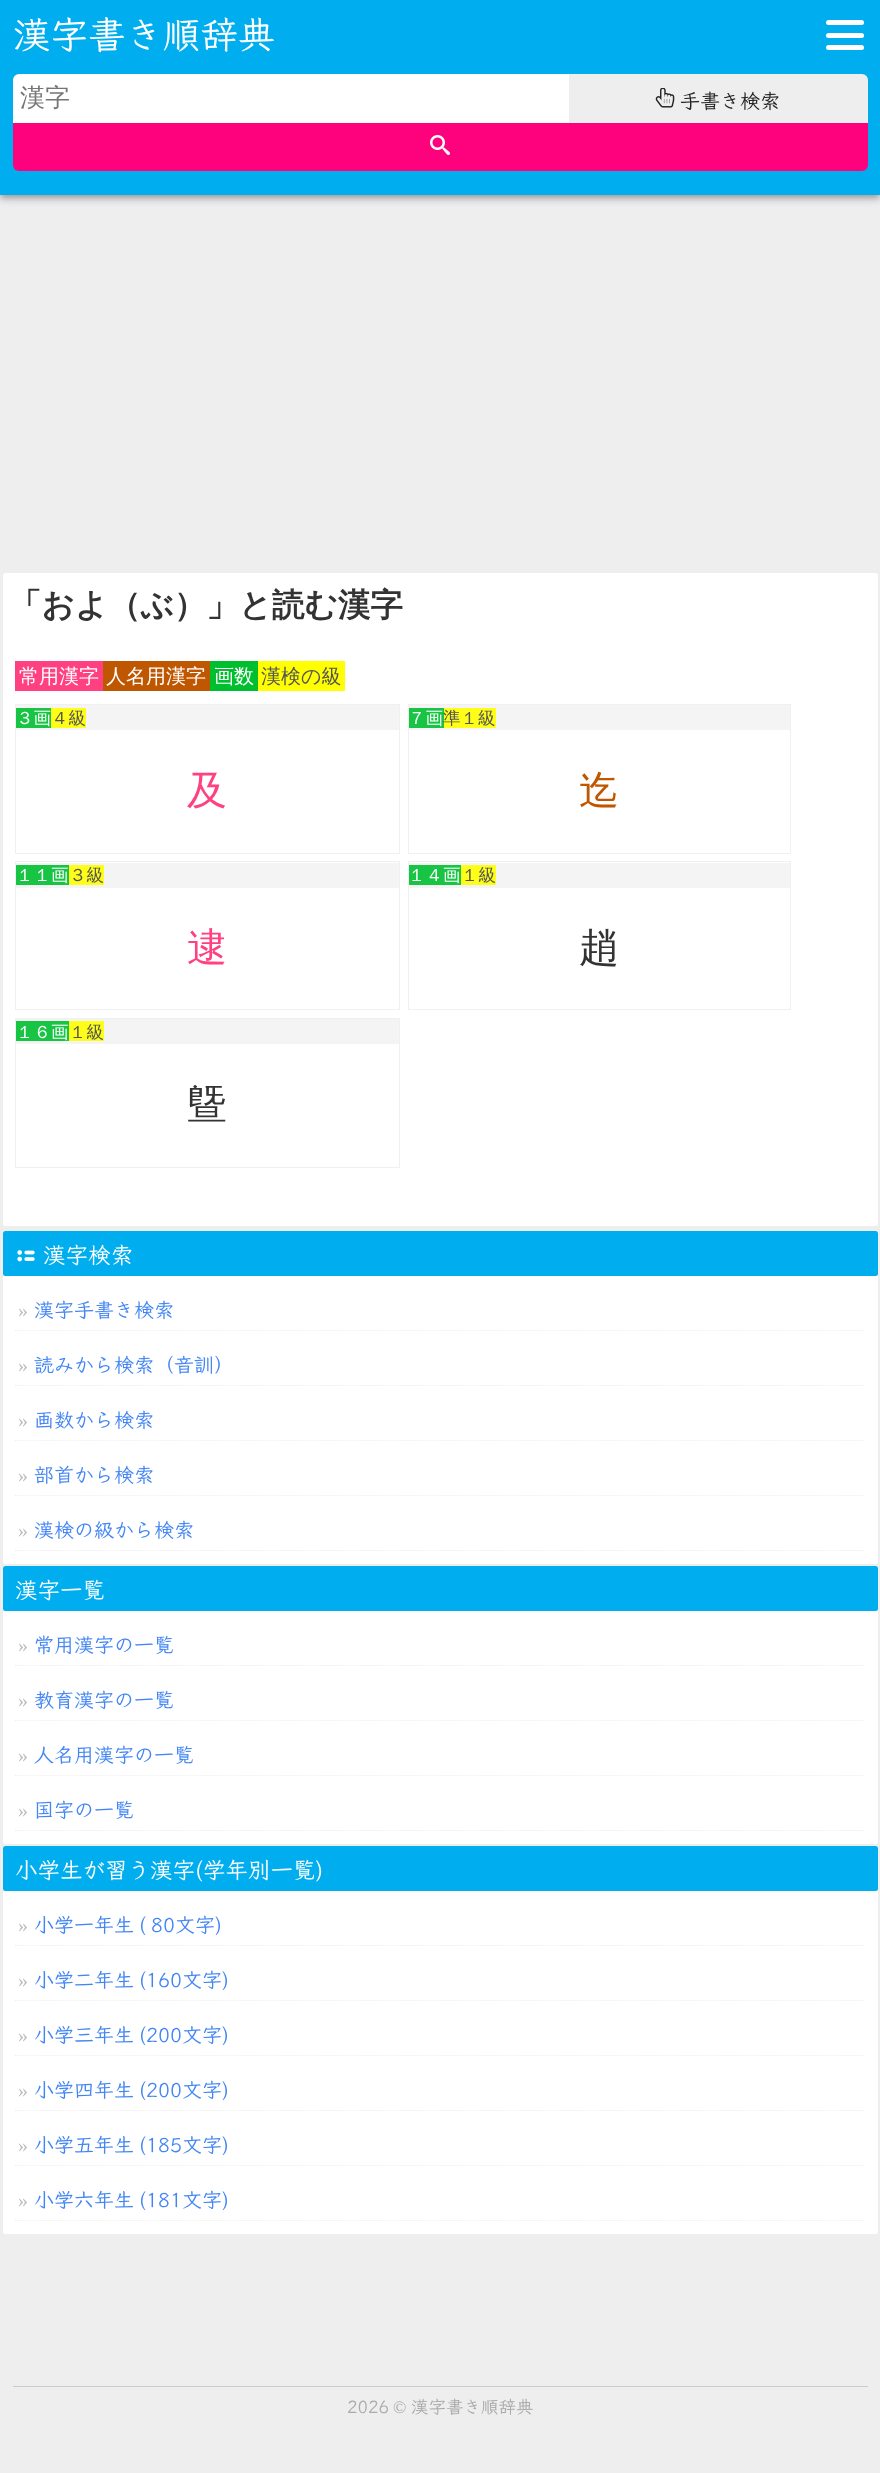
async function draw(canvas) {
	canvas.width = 880;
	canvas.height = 2473;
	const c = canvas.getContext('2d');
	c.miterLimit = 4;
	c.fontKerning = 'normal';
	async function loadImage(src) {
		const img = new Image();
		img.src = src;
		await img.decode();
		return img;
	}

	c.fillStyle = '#eee';
	c.fillRect(0, 0, 880, 2473);
	c.fillStyle = '#0000001f';
	c.filter = 'blur(6px)';
	c.beginPath();
	c.rect(0, 1, 880, 195);
	c.fill();
	c.filter = 'none';
	c.fillStyle = '#00000024';
	c.filter = 'blur(3px)';
	c.beginPath();
	c.rect(0, 5, 880, 195);
	c.fill();
	c.filter = 'none';
	c.fillStyle = '#00000033';
	c.filter = 'blur(2.5px)';
	c.beginPath();
	c.rect(1, 4, 878, 192);
	c.fill();
	c.filter = 'none';
	c.fillStyle = '#00aeef';
	c.fillRect(0, 0, 880, 195);
	c.font = '600 37.5px Klee One';
	c.fillStyle = '#fff';
	c.fillText('漢字書き順辞典', 13, 48);
	c.beginPath();
	c.roundRect(826, 33, 38, 5, 2.5);
	c.fill();
	c.beginPath();
	c.roundRect(826, 20, 38, 5, 2.5);
	c.fill();
	c.beginPath();
	c.roundRect(826, 45, 38, 5, 2.5);
	c.fill();
	c.beginPath();
	c.roundRect(13, 74, 556, 49, [6, 0, 0, 0]);
	c.fill();
	c.font = '500 25px WenQuanYi Zen Hei';
	c.fillStyle = '#757575';
	c.fillText('漢字', 20, 106);
	c.fillStyle = '#eee';
	c.beginPath();
	c.roundRect(569, 74, 299, 49, [0, 6, 0, 0]);
	c.fill();
	c.drawImage(await loadImage('img1.png'), 655, 88, 20, 20);
	c.font = '600 20px Klee One';
	c.fillStyle = '#222';
	c.fillText('手書き検索', 680, 108);
	c.fillStyle = '#fd027c';
	c.beginPath();
	c.roundRect(13, 123, 855, 48, [0, 0, 6, 6]);
	c.fill();
	c.drawImage(await loadImage('img2.png'), 430, 135, 20, 20);
	c.fillStyle = '#fff';
	c.beginPath();
	c.roundRect(3, 573, 875, 653, 2.5);
	c.fill();
	c.font = 'bold 32.5px WenQuanYi Zen Hei';
	c.fillStyle = '#333';
	c.fillText('「およ（ぶ）」と読む漢字', 9, 616);
	c.fillStyle = '#ff4081';
	c.fillRect(15, 661, 88, 30);
	c.font = '500 20px WenQuanYi Zen Hei';
	c.fillStyle = '#fff';
	c.fillText('常用漢字', 19, 683);
	c.fillStyle = '#bf5600';
	c.fillRect(103, 661, 107, 30);
	c.fillStyle = '#fff';
	c.fillText('人名用漢字', 106, 683);
	c.fillStyle = '#00bf2f';
	c.fillRect(210, 661, 48, 30);
	c.fillStyle = '#fff';
	c.fillText('画数', 214, 683);
	c.fillStyle = '#ff0';
	c.fillRect(258, 661, 87, 30);
	c.fillStyle = '#555';
	c.fillText('漢検の級', 261, 683);
	c.strokeStyle = '#f0f0f0';
	c.strokeRect(15.5, 704.5, 384, 149);
	c.fillStyle = '#f4f4f4';
	c.fillRect(16, 705, 383, 25);
	c.fillStyle = '#18c443';
	c.fillRect(16, 708, 35, 20);
	c.font = '500 17.5px WenQuanYi Zen Hei';
	c.fillStyle = '#fff';
	c.fillText('３画', 16, 724);
	c.fillStyle = '#fefe18';
	c.fillRect(51, 708, 35, 20);
	c.fillStyle = '#555';
	c.fillText('４級', 51, 724);
	c.font = '500 40px WenQuanYi Zen Hei';
	c.fillStyle = '#ff4081';
	c.fillText('及', 187, 804);
	c.strokeRect(408.5, 704.5, 382, 149);
	c.fillStyle = '#f4f4f4';
	c.fillRect(409, 705, 381, 25);
	c.fillStyle = '#18c443';
	c.fillRect(409, 708, 35, 20);
	c.font = '500 17.5px WenQuanYi Zen Hei';
	c.fillStyle = '#fff';
	c.fillText('７画', 408, 724);
	c.fillStyle = '#fefe18';
	c.fillRect(444, 708, 52, 20);
	c.fillStyle = '#555';
	c.fillText('準１級', 443, 724);
	c.font = '500 40px WenQuanYi Zen Hei';
	c.fillStyle = '#bf5600';
	c.fillText('迄', 579, 804);
	c.strokeRect(15.5, 861.5, 384, 148);
	c.fillStyle = '#f4f4f4';
	c.fillRect(16, 863, 383, 25);
	c.fillStyle = '#18c443';
	c.fillRect(16, 865, 53, 20);
	c.font = '500 17.5px WenQuanYi Zen Hei';
	c.fillStyle = '#fff';
	c.fillText('１１画', 16, 881);
	c.fillStyle = '#fefe18';
	c.fillRect(69, 865, 35, 20);
	c.fillStyle = '#555';
	c.fillText('３級', 69, 881);
	c.font = '500 40px WenQuanYi Zen Hei';
	c.fillStyle = '#ff4081';
	c.fillText('逮', 187, 961);
	c.strokeRect(408.5, 861.5, 382, 148);
	c.fillStyle = '#f4f4f4';
	c.fillRect(409, 863, 381, 25);
	c.fillStyle = '#18c443';
	c.fillRect(409, 865, 52, 20);
	c.font = '500 17.5px WenQuanYi Zen Hei';
	c.fillStyle = '#fff';
	c.fillText('１４画', 408, 881);
	c.fillStyle = '#fefe18';
	c.fillRect(461, 865, 35, 20);
	c.fillStyle = '#555';
	c.fillText('１級', 461, 881);
	c.font = '500 40px WenQuanYi Zen Hei';
	c.fillStyle = '#333';
	c.fillText('趙', 579, 961);
	c.strokeRect(15.5, 1018.5, 384, 149);
	c.fillStyle = '#f4f4f4';
	c.fillRect(16, 1019, 383, 25);
	c.fillStyle = '#18c443';
	c.fillRect(16, 1021, 53, 20);
	c.font = '500 17.5px WenQuanYi Zen Hei';
	c.fillStyle = '#fff';
	c.fillText('１６画', 16, 1038);
	c.fillStyle = '#fefe18';
	c.fillRect(69, 1021, 35, 20);
	c.fillStyle = '#555';
	c.fillText('１級', 69, 1038);
	c.font = '500 40px WenQuanYi Zen Hei';
	c.fillStyle = '#333';
	c.fillText('曁', 187, 1118);
	c.fillStyle = '#fff';
	c.beginPath();
	c.roundRect(3, 1231, 875, 333, 2.5);
	c.fill();
	c.fillStyle = '#00aeef';
	c.beginPath();
	c.roundRect(3, 1231, 875, 45, 2.5);
	c.fill();
	c.drawImage(await loadImage('img3.png'), 17, 1250, 18, 12);
	c.font = '600 22.5px Klee One';
	c.fillStyle = '#fff';
	c.fillText('漢字検索', 43, 1263);
	c.beginPath();
	c.moveTo(15, 1330.5);
	c.lineTo(865, 1330.5);
	c.strokeStyle = '#eee';
	c.lineWidth = 1.2;
	c.setLineDash([1.25, 1.25]);
	c.stroke();
	c.font = '20px Liberation Serif';
	c.fillStyle = '#bbb';
	c.fillText('»', 18, 1317);
	c.font = '600 20px Klee One';
	c.fillStyle = '#4285f4';
	c.fillText('漢字手書き検索', 34, 1317);
	c.beginPath();
	c.moveTo(15, 1385.5);
	c.lineTo(865, 1385.5);
	c.stroke();
	c.font = '20px Liberation Serif';
	c.fillStyle = '#bbb';
	c.fillText('»', 18, 1372);
	c.font = '600 20px Klee One';
	c.fillStyle = '#4285f4';
	c.fillText('読みから検索（音訓）', 34, 1372);
	c.beginPath();
	c.moveTo(15, 1440.5);
	c.lineTo(865, 1440.5);
	c.stroke();
	c.font = '20px Liberation Serif';
	c.fillStyle = '#bbb';
	c.fillText('»', 18, 1427);
	c.font = '600 20px Klee One';
	c.fillStyle = '#4285f4';
	c.fillText('画数から検索', 34, 1427);
	c.beginPath();
	c.moveTo(15, 1495.5);
	c.lineTo(865, 1495.5);
	c.stroke();
	c.font = '20px Liberation Serif';
	c.fillStyle = '#bbb';
	c.fillText('»', 18, 1482);
	c.font = '600 20px Klee One';
	c.fillStyle = '#4285f4';
	c.fillText('部首から検索', 34, 1482);
	c.beginPath();
	c.moveTo(15, 1550.5);
	c.lineTo(865, 1550.5);
	c.stroke();
	c.font = '20px Liberation Serif';
	c.fillStyle = '#bbb';
	c.fillText('»', 18, 1537);
	c.font = '600 20px Klee One';
	c.fillStyle = '#4285f4';
	c.fillText('漢検の級から検索', 34, 1537);
	c.fillStyle = '#fff';
	c.beginPath();
	c.roundRect(3, 1566, 875, 278, 2.5);
	c.fill();
	c.fillStyle = '#00aeef';
	c.beginPath();
	c.roundRect(3, 1566, 875, 45, 2.5);
	c.fill();
	c.font = '600 22.5px Klee One';
	c.fillStyle = '#fff';
	c.fillText('漢字一覧', 15, 1598);
	c.beginPath();
	c.moveTo(15, 1665.5);
	c.lineTo(865, 1665.5);
	c.stroke();
	c.font = '20px Liberation Serif';
	c.fillStyle = '#bbb';
	c.fillText('»', 18, 1652);
	c.font = '600 20px Klee One';
	c.fillStyle = '#4285f4';
	c.fillText('常用漢字の一覧', 34, 1652);
	c.beginPath();
	c.moveTo(15, 1720.5);
	c.lineTo(865, 1720.5);
	c.stroke();
	c.font = '20px Liberation Serif';
	c.fillStyle = '#bbb';
	c.fillText('»', 18, 1707);
	c.font = '600 20px Klee One';
	c.fillStyle = '#4285f4';
	c.fillText('教育漢字の一覧', 34, 1707);
	c.beginPath();
	c.moveTo(15, 1775.5);
	c.lineTo(865, 1775.5);
	c.stroke();
	c.font = '20px Liberation Serif';
	c.fillStyle = '#bbb';
	c.fillText('»', 18, 1762);
	c.font = '600 20px Klee One';
	c.fillStyle = '#4285f4';
	c.fillText('人名用漢字の一覧', 34, 1762);
	c.beginPath();
	c.moveTo(15, 1830.5);
	c.lineTo(865, 1830.5);
	c.stroke();
	c.font = '20px Liberation Serif';
	c.fillStyle = '#bbb';
	c.fillText('»', 18, 1817);
	c.font = '600 20px Klee One';
	c.fillStyle = '#4285f4';
	c.fillText('国字の一覧', 34, 1817);
	c.fillStyle = '#fff';
	c.beginPath();
	c.roundRect(3, 1846, 875, 388, 2.5);
	c.fill();
	c.fillStyle = '#00aeef';
	c.beginPath();
	c.roundRect(3, 1846, 875, 45, 2.5);
	c.fill();
	c.font = '600 22.5px Klee One';
	c.fillStyle = '#fff';
	c.fillText('小学生が習う漢字(学年別一覧)', 15, 1878);
	c.beginPath();
	c.moveTo(15, 1945.5);
	c.lineTo(865, 1945.5);
	c.stroke();
	c.font = '20px Liberation Serif';
	c.fillStyle = '#bbb';
	c.fillText('»', 18, 1932);
	c.font = '600 20px Klee One';
	c.fillStyle = '#4285f4';
	for (const [text, x, y] of [
		['小学一年生', 34, 1932],
		['(', 139, 1932],
		['80文字)', 151, 1932],
	]) {
		c.fillText(text, x, y);
	}
	c.beginPath();
	c.moveTo(15, 2000.5);
	c.lineTo(865, 2000.5);
	c.stroke();
	c.font = '20px Liberation Serif';
	c.fillStyle = '#bbb';
	c.fillText('»', 18, 1987);
	c.font = '600 20px Klee One';
	c.fillStyle = '#4285f4';
	c.fillText('小学二年生', 34, 1987);
	c.fillText('(160文字)', 139, 1987);
	c.beginPath();
	c.moveTo(15, 2055.5);
	c.lineTo(865, 2055.5);
	c.stroke();
	c.font = '20px Liberation Serif';
	c.fillStyle = '#bbb';
	c.fillText('»', 18, 2042);
	c.font = '600 20px Klee One';
	c.fillStyle = '#4285f4';
	c.fillText('小学三年生', 34, 2042);
	c.fillText('(200文字)', 139, 2042);
	c.beginPath();
	c.moveTo(15, 2110.5);
	c.lineTo(865, 2110.5);
	c.stroke();
	c.font = '20px Liberation Serif';
	c.fillStyle = '#bbb';
	c.fillText('»', 18, 2097);
	c.font = '600 20px Klee One';
	c.fillStyle = '#4285f4';
	c.fillText('小学四年生', 34, 2097);
	c.fillText('(200文字)', 139, 2097);
	c.beginPath();
	c.moveTo(15, 2165.5);
	c.lineTo(865, 2165.5);
	c.stroke();
	c.font = '20px Liberation Serif';
	c.fillStyle = '#bbb';
	c.fillText('»', 18, 2152);
	c.font = '600 20px Klee One';
	c.fillStyle = '#4285f4';
	c.fillText('小学五年生', 34, 2152);
	c.fillText('(185文字)', 139, 2152);
	c.beginPath();
	c.moveTo(15, 2220.5);
	c.lineTo(865, 2220.5);
	c.stroke();
	c.font = '20px Liberation Serif';
	c.fillStyle = '#bbb';
	c.fillText('»', 18, 2207);
	c.font = '600 20px Klee One';
	c.fillStyle = '#4285f4';
	c.fillText('小学六年生', 34, 2207);
	c.fillText('(181文字)', 139, 2207);
	c.fillStyle = '#ccc';
	c.fillRect(13, 2386, 855, 1);
	c.font = '600 17.5px Klee One';
	c.fillStyle = '#aaa';
	c.fillText('2026', 347, 2413);
	c.font = '17.5px Liberation Serif';
	c.fillText('©', 393, 2413);
	c.font = '600 17.5px Klee One';
	c.fillText('漢字書き順辞典', 411, 2413);
}

draw(document.querySelector('canvas'));
